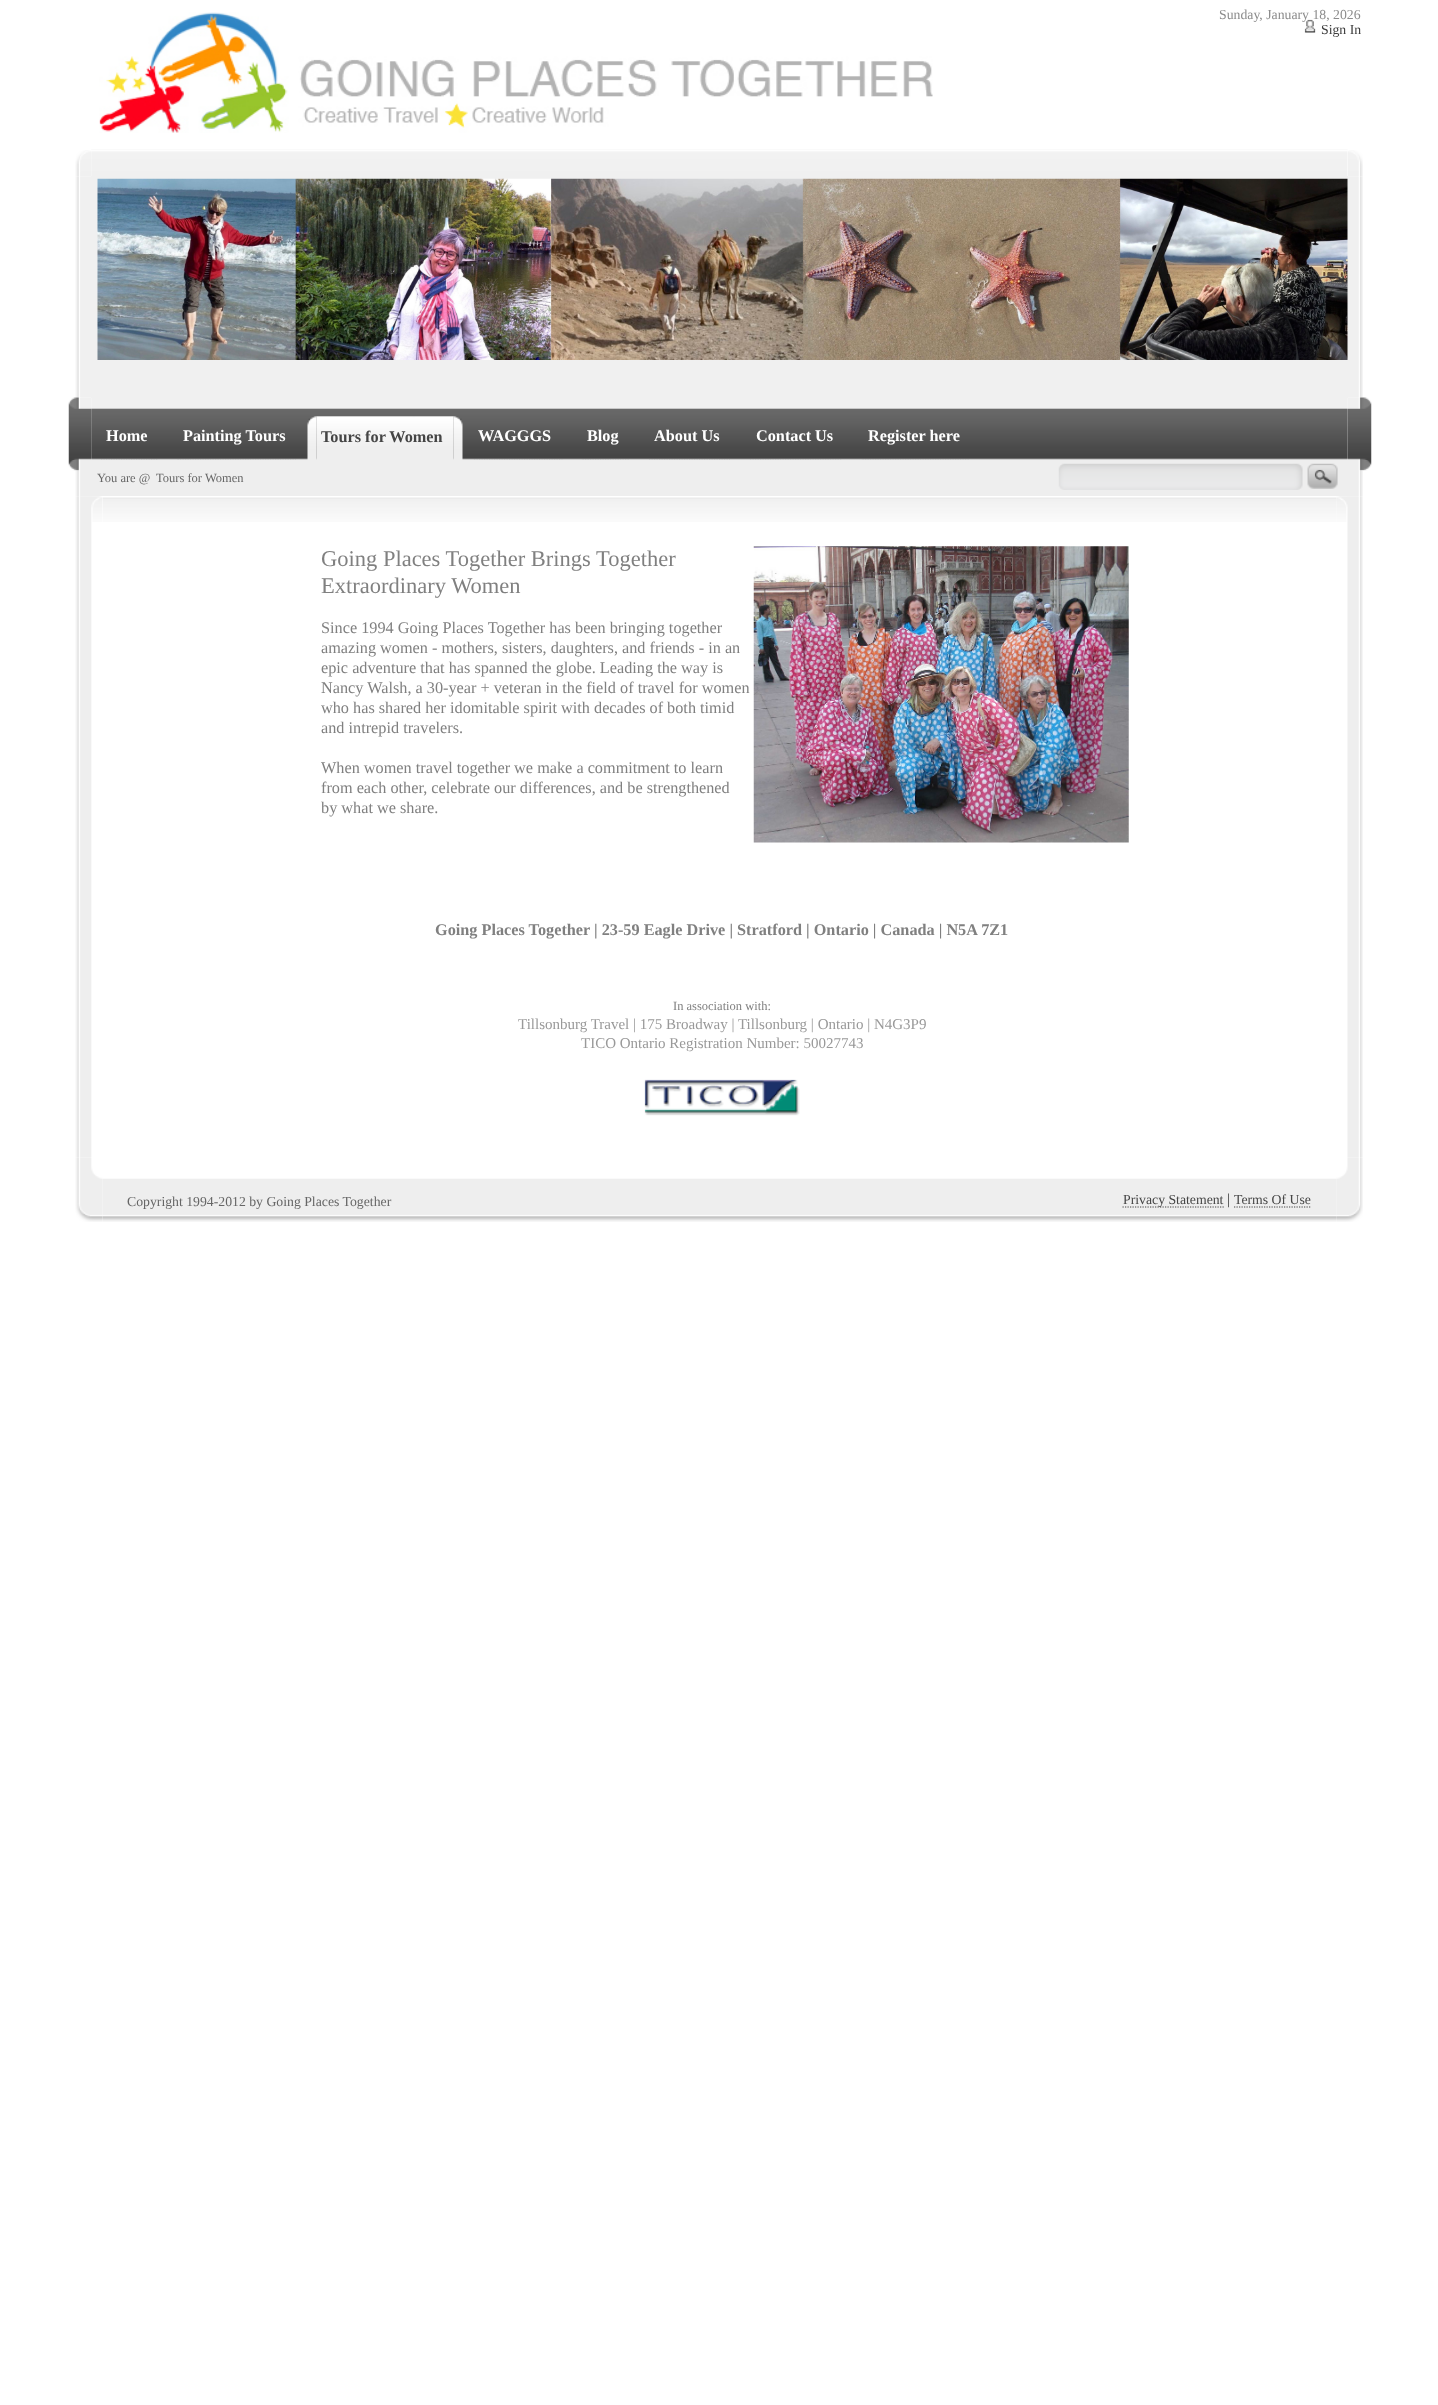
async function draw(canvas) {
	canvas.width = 1438;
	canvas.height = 2405;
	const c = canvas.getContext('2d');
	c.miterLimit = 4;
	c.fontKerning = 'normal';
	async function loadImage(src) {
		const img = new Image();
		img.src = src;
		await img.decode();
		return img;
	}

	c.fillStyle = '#fff';
	c.fillRect(0, 0, 1438, 2405);
	c.drawImage(await loadImage('img1.png'), 99, 12, 834, 121);
	c.font = '13.75px Liberation Serif';
	c.fillStyle = '#8c8c8c';
	c.fillText('Sunday, January 18, 2026', 1219, 19);
	c.drawImage(await loadImage('img2.png'), 1304, 19, 12, 14);
	c.fillStyle = '#3d3d3d';
	c.fillText('Sign In', 1321, 34);
	c.drawImage(await loadImage('img3.png'), 75, 150, 16, 26);
	c.drawImage(await loadImage('img4.png'), 91, 149, 1257, 27);
	c.drawImage(await loadImage('img5.png'), 1348, 150, 15, 26);
	c.drawImage(await loadImage('img6.png'), 75, 176, 16, 222);
	c.fillStyle = '#f0f0f0';
	c.fillRect(91, 176, 1257, 222);
	c.drawImage(await loadImage('img7.png'), 97, 178, 1251, 182);
	c.drawImage(await loadImage('img8.png'), 1348, 176, 15, 222);
	c.drawImage(await loadImage('img10.png'), 91, 398, 1257, 62);
	c.drawImage(await loadImage('img9.png'), 68, 397, 24, 63);
	c.beginPath();
	c.moveTo(101, 459.5);
	c.lineTo(157.5, 459.5);
	c.strokeStyle = '#c3c3c3';
	c.lineWidth = 1.2;
	c.setLineDash([1.25, 1.25]);
	c.stroke();
	c.font = 'bold 16.25px Liberation Serif';
	c.fillStyle = '#fff';
	c.fillText('Home', 106, 441);
	c.beginPath();
	c.moveTo(177.5, 459.5);
	c.lineTo(296, 459.5);
	c.stroke();
	c.fillText('Painting Tours', 183, 441);
	c.beginPath();
	c.moveTo(316, 459.5);
	c.lineTo(454, 459.5);
	c.stroke();
	c.drawImage(await loadImage('img12.png'), 316, 416, 138, 44);
	c.drawImage(await loadImage('img11.png'), 307, 416, 10, 44);
	c.fillStyle = '#454545';
	c.fillText('Tours for Women', 321, 442);
	c.drawImage(await loadImage('img13.png'), 453, 416, 10, 44);
	c.beginPath();
	c.moveTo(474, 459.5);
	c.lineTo(562.5, 459.5);
	c.stroke();
	c.fillStyle = '#fff';
	c.fillText('WAGGGS', 478, 441);
	c.beginPath();
	c.moveTo(582.5, 459.5);
	c.lineTo(629, 459.5);
	c.stroke();
	c.fillText('Blog', 587, 441);
	c.beginPath();
	c.moveTo(649, 459.5);
	c.lineTo(730, 459.5);
	c.stroke();
	c.fillText('About Us', 654, 441);
	c.beginPath();
	c.moveTo(750, 459.5);
	c.lineTo(842.5, 459.5);
	c.stroke();
	c.fillText('Contact Us', 756, 441);
	c.beginPath();
	c.moveTo(862.5, 459.5);
	c.lineTo(970, 459.5);
	c.stroke();
	c.fillText('Register here', 868, 441);
	c.drawImage(await loadImage('img14.png'), 1347, 397, 25, 63);
	c.drawImage(await loadImage('img15.png'), 75, 460, 17, 37);
	c.drawImage(await loadImage('img16.png'), 68, 460, 11, 11);
	c.fillStyle = '#eee';
	c.fillRect(91, 460, 1257, 36);
	c.font = '12.5px Liberation Serif';
	c.fillStyle = '#666';
	c.fillText('You are @', 97, 482);
	c.fillText('Tours for Women', 156, 482);
	c.drawImage(await loadImage('img17.png'), 1058, 463, 280, 27);
	c.drawImage(await loadImage('img18.png'), 1348, 460, 15, 37);
	c.drawImage(await loadImage('img19.png'), 1359, 460, 13, 11);
	c.drawImage(await loadImage('img20.png'), 75, 496, 17, 662);
	c.drawImage(await loadImage('img21.png'), 91, 496, 11, 26);
	c.drawImage(await loadImage('img22.png'), 102, 497, 1235, 25);
	c.font = '22.5px Liberation Serif';
	c.fillStyle = '#808080';
	c.fillText('Going Places Together Brings Together', 321, 566);
	c.fillText('Extraordinary Women', 321, 593);
	c.font = '16.25px Liberation Serif';
	for (const [text, x, y] of [
		['Since 1994 Going Places Together has been bringing together', 321, 633],
		['amazing women - mothers, sisters, daughters, and friends - in an', 321, 653],
		['epic adventure that has spanned the globe. Leading the way is', 321, 673],
		['Nancy Walsh, a 30-year + veteran in the field of travel for women', 321, 693],
		['who has shared her idomitable spirit with decades of both timid', 321, 713],
		['and intrepid travelers.', 321, 733],
		['When women travel together we make a commitment to learn', 321, 773],
		['from each other, celebrate our differences, and be strengthened', 321, 793],
		['by what we share.', 321, 813],
	]) {
		c.fillText(text, x, y);
	}
	c.drawImage(await loadImage('img23.png'), 753, 546, 376, 297);
	c.font = 'bold 16.25px Liberation Serif';
	c.fillText('Going Places Together | 23-59 Eagle Drive | Stratford | Ontario | Canada | N5A 7Z1', 435, 935);
	c.font = '12.5px Liberation Serif';
	c.fillText('In association with:', 673, 1010);
	c.font = '15px Liberation Serif';
	c.fillStyle = '#999';
	c.fillText('Tillsonburg Travel | 175 Broadway | Tillsonburg | Ontario | N4G3P9', 518, 1029);
	c.fillText('TICO Ontario Registration Number: 50027743', 581, 1048);
	c.drawImage(await loadImage('img24.png'), 644, 1079, 156, 37);
	c.drawImage(await loadImage('img25.png'), 1347, 496, 16, 662);
	c.drawImage(await loadImage('img26.png'), 1336, 496, 12, 26);
	c.drawImage(await loadImage('img28.png'), 102, 1178, 1235, 44);
	c.drawImage(await loadImage('img27.png'), 75, 1157, 28, 65);
	c.font = '13.75px Liberation Serif';
	c.fillStyle = '#666';
	c.fillText('Copyright 1994-2012 by Going Places Together', 127, 1206);
	c.beginPath();
	c.moveTo(1122.5, 1207);
	c.lineTo(1224, 1207);
	c.strokeStyle = '#454545';
	c.stroke();
	c.fillStyle = '#454545';
	c.fillText('Privacy Statement', 1123, 1204);
	c.font = '15px Liberation Serif';
	c.fillStyle = '#333';
	c.fillText('|', 1227, 1204);
	c.font = '13.75px Liberation Serif';
	c.fillStyle = '#454545';
	c.fillText('Terms Of Use', 1234, 1204);
	c.beginPath();
	c.moveTo(1234, 1207);
	c.lineTo(1311, 1207);
	c.stroke();
	c.drawImage(await loadImage('img29.png'), 1336, 1157, 27, 65);
}

draw(document.querySelector('canvas'));
